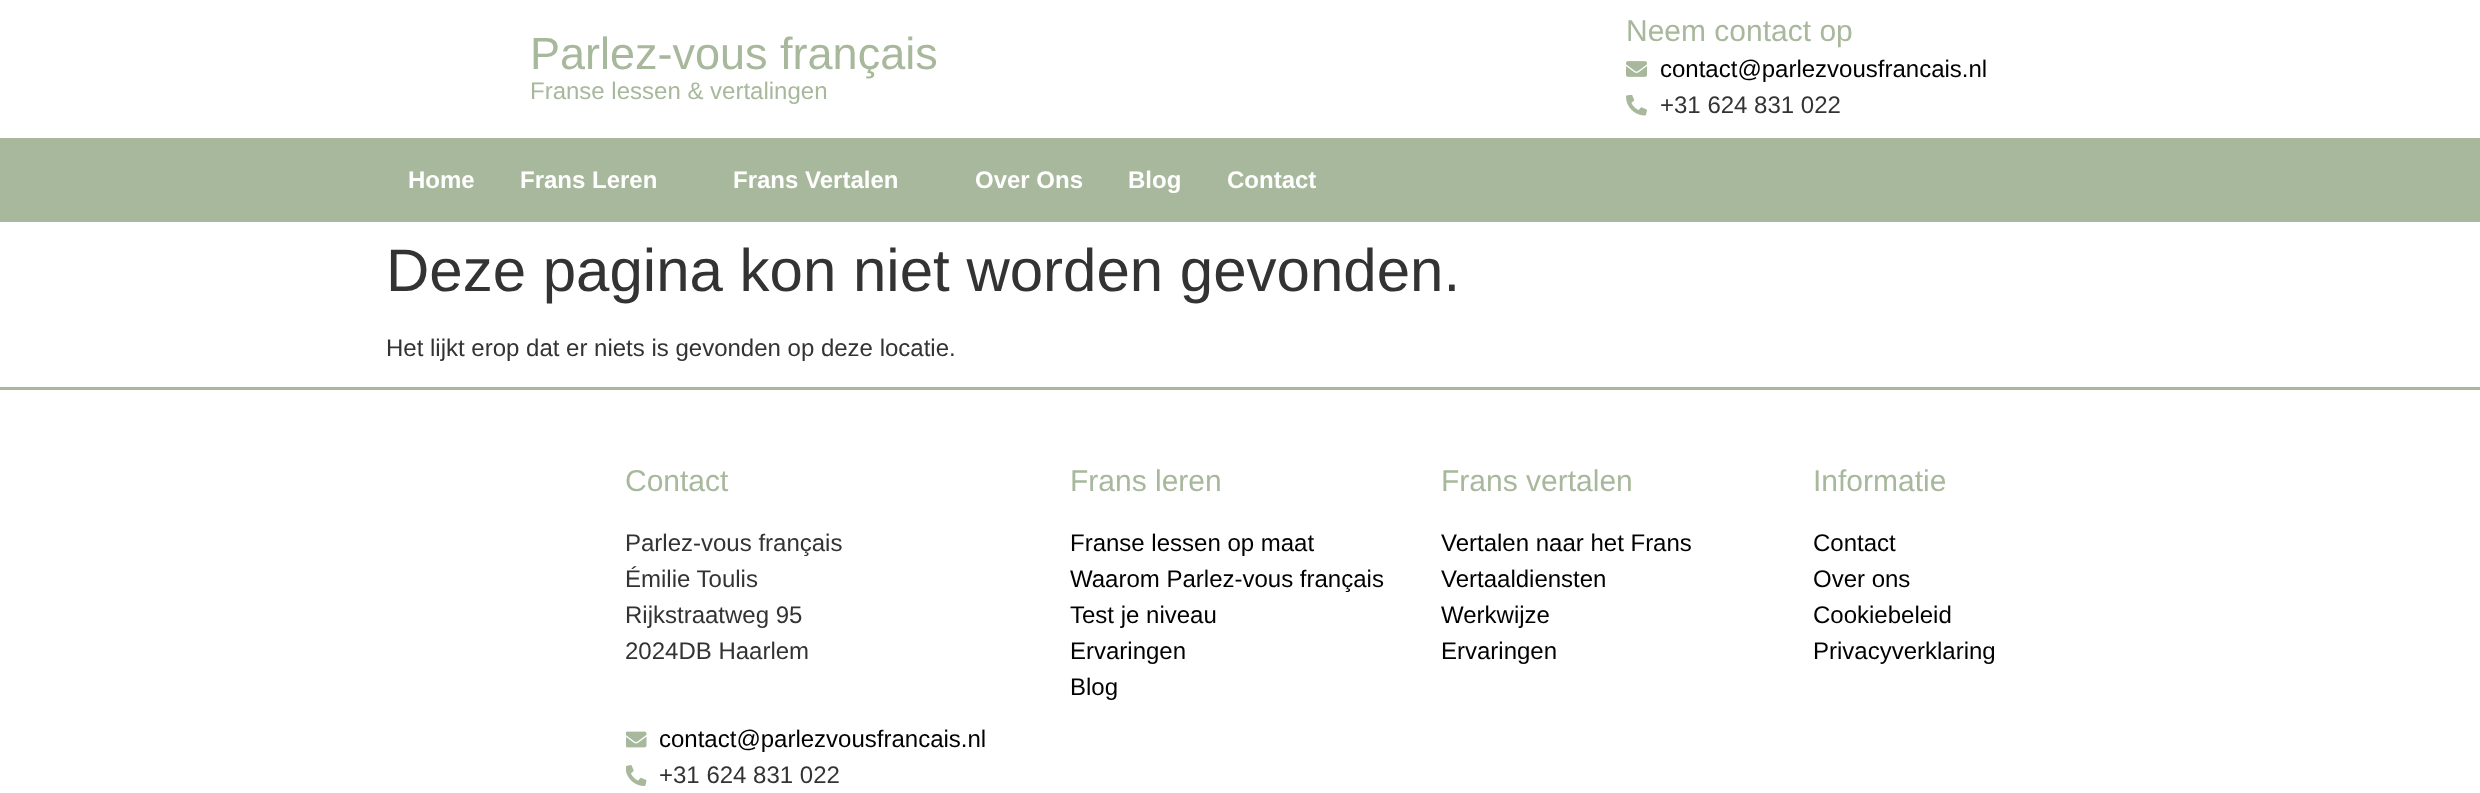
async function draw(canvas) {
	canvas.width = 2480;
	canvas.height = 793;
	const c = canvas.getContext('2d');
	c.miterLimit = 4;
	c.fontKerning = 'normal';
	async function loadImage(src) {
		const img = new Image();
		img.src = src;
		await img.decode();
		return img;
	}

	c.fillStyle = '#fff';
	c.fillRect(0, 0, 2480, 793);
	c.font = '45px Liberation Sans';
	c.fillStyle = '#a8b89c';
	c.fillText('Parlez-vous français', 530, 69);
	c.font = '24px Liberation Sans';
	c.fillText('Franse lessen & vertalingen', 530, 99);
	c.font = '30px Liberation Sans';
	c.fillText('Neem contact op', 1626, 41);
	c.drawImage(await loadImage('img1.png'), 1626, 61, 21, 16);
	c.font = '24px Liberation Sans';
	c.fillStyle = '#000';
	c.fillText('contact@parlezvousfrancais.nl', 1660, 77);
	c.drawImage(await loadImage('img2.png'), 1626, 95, 21, 21);
	c.fillStyle = '#333';
	c.fillText('+31 624 831 022', 1660, 113);
	c.fillStyle = '#a8b89c';
	c.fillRect(0, 138, 2480, 84);
	c.font = 'bold 24px Liberation Sans';
	c.fillStyle = '#fff';
	for (const [text, x, y] of [
		['Home', 408, 188],
		['Frans Leren', 520, 188],
		['Frans Vertalen', 733, 188],
		['Over Ons', 975, 188],
		['Blog', 1128, 188],
		['Contact', 1227, 188],
	]) {
		c.fillText(text, x, y);
	}
	c.font = '60px Liberation Sans';
	c.fillStyle = '#333';
	c.fillText('Deze pagina kon niet worden gevonden.', 386, 291);
	c.font = '24px Liberation Sans';
	c.fillText('Het lijkt erop dat er niets is gevonden op deze locatie.', 386, 356);
	c.fillStyle = '#a8b89c';
	c.fillRect(0, 387, 2480, 3);
	c.font = '30px Liberation Sans';
	c.fillText('Contact', 625, 491);
	c.font = '24px Liberation Sans';
	c.fillStyle = '#333';
	for (const [text, x, y] of [
		['Parlez-vous français', 625, 551],
		['Émilie Toulis', 625, 587],
		['Rijkstraatweg 95', 625, 623],
		['2024DB Haarlem', 625, 659],
	]) {
		c.fillText(text, x, y);
	}
	c.drawImage(await loadImage('img3.png'), 626, 731, 21, 17);
	c.fillStyle = '#000';
	c.fillText('contact@parlezvousfrancais.nl', 659, 747);
	c.drawImage(await loadImage('img4.png'), 626, 765, 21, 21);
	c.fillStyle = '#333';
	c.fillText('+31 624 831 022', 659, 783);
	c.font = '30px Liberation Sans';
	c.fillStyle = '#a8b89c';
	c.fillText('Frans leren', 1070, 491);
	c.font = '24px Liberation Sans';
	c.fillStyle = '#000';
	for (const [text, x, y] of [
		['Franse lessen op maat', 1070, 551],
		['Waarom Parlez-vous français', 1070, 587],
		['Test je niveau', 1070, 623],
		['Ervaringen', 1070, 659],
		['Blog', 1070, 695],
	]) {
		c.fillText(text, x, y);
	}
	c.font = '30px Liberation Sans';
	c.fillStyle = '#a8b89c';
	c.fillText('Frans vertalen', 1441, 491);
	c.font = '24px Liberation Sans';
	c.fillStyle = '#000';
	for (const [text, x, y] of [
		['Vertalen naar het Frans', 1441, 551],
		['Vertaaldiensten', 1441, 587],
		['Werkwijze', 1441, 623],
		['Ervaringen', 1441, 659],
	]) {
		c.fillText(text, x, y);
	}
	c.font = '30px Liberation Sans';
	c.fillStyle = '#a8b89c';
	c.fillText('Informatie', 1813, 491);
	c.font = '24px Liberation Sans';
	c.fillStyle = '#000';
	for (const [text, x, y] of [
		['Contact', 1813, 551],
		['Over ons', 1813, 587],
		['Cookiebeleid', 1813, 623],
		['Privacyverklaring', 1813, 659],
	]) {
		c.fillText(text, x, y);
	}
}

draw(document.querySelector('canvas'));
